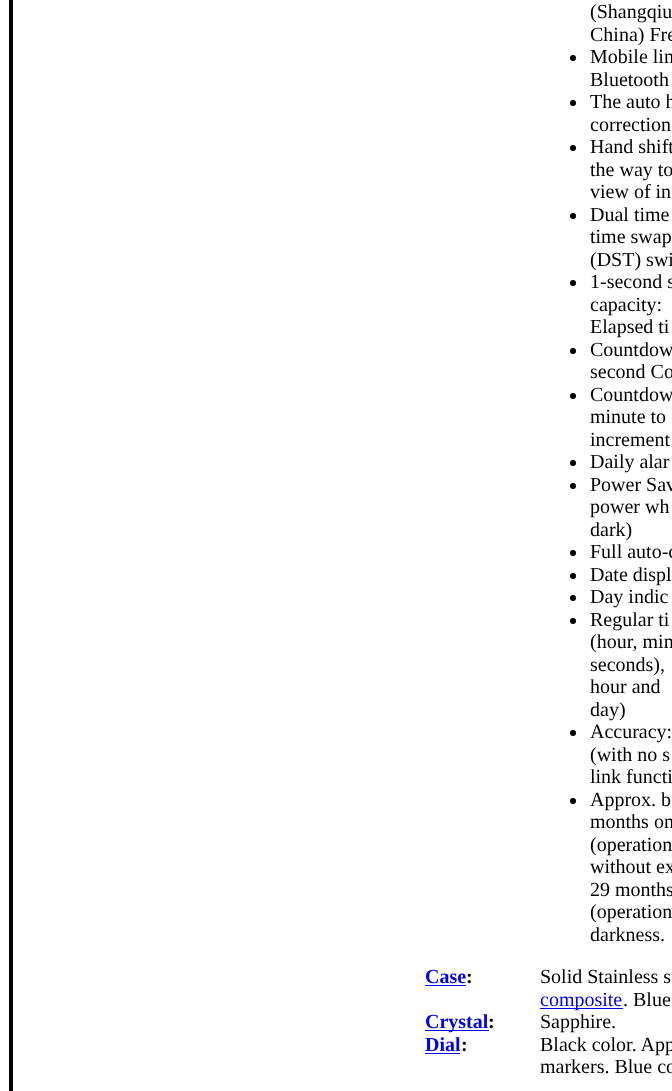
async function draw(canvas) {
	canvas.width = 672;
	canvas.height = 1091;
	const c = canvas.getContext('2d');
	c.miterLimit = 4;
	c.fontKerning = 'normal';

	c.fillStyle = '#fff';
	c.fillRect(0, 0, 672, 1091);
	c.strokeStyle = '#000';
	c.lineWidth = 4;
	c.strokeRect(11, -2, 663, 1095);
	c.font = '20px Liberation Serif';
	c.fillStyle = '#000';
	c.fillText('(Shangqiu', 590, 18);
	c.fillText('China) Fre', 590, 41);
	c.beginPath();
	c.arc(573, 58, 3, 0, 2 * Math.PI);
	c.fill();
	c.fillText('Mobile lin', 590, 63);
	c.fillText('Bluetooth', 590, 86);
	c.beginPath();
	c.arc(573, 103, 3, 0, 2 * Math.PI);
	c.fill();
	c.fillText('The auto h', 590, 108);
	c.fillText('correction', 590, 131);
	c.beginPath();
	c.arc(573, 148, 3, 0, 2 * Math.PI);
	c.fill();
	for (const [text, x, y] of [
		['Hand shift', 590, 153],
		['the way to', 590, 176],
		['view of in', 590, 198],
	]) {
		c.fillText(text, x, y);
	}
	c.beginPath();
	c.arc(573, 216, 3, 0, 2 * Math.PI);
	c.fill();
	for (const [text, x, y] of [
		['Dual time', 590, 221],
		['time swap', 590, 243],
		['(DST) swi', 590, 266],
	]) {
		c.fillText(text, x, y);
	}
	c.beginPath();
	c.arc(573, 283, 3, 0, 2 * Math.PI);
	c.fill();
	for (const [text, x, y] of [
		['1-second s', 590, 288],
		['capacity:', 590, 311],
		['Elapsed ti', 590, 333],
	]) {
		c.fillText(text, x, y);
	}
	c.beginPath();
	c.arc(573, 351, 3, 0, 2 * Math.PI);
	c.fill();
	c.fillText('Countdow', 590, 356);
	c.fillText('second Co', 590, 378);
	c.beginPath();
	c.arc(573, 396, 3, 0, 2 * Math.PI);
	c.fill();
	for (const [text, x, y] of [
		['Countdow', 590, 401],
		['minute to', 590, 423],
		['increment', 590, 446],
	]) {
		c.fillText(text, x, y);
	}
	c.beginPath();
	c.arc(573, 463, 3, 0, 2 * Math.PI);
	c.fill();
	c.fillText('Daily alar', 590, 468);
	c.beginPath();
	c.arc(573, 486, 3, 0, 2 * Math.PI);
	c.fill();
	for (const [text, x, y] of [
		['Power Sav', 590, 491],
		['power wh', 590, 513],
		['dark)', 590, 536],
	]) {
		c.fillText(text, x, y);
	}
	c.beginPath();
	c.arc(573, 553, 3, 0, 2 * Math.PI);
	c.fill();
	c.fillText('Full auto-c', 590, 558);
	c.beginPath();
	c.arc(573, 576, 3, 0, 2 * Math.PI);
	c.fill();
	c.fillText('Date displ', 590, 581);
	c.beginPath();
	c.arc(573, 598, 3, 0, 2 * Math.PI);
	c.fill();
	c.fillText('Day indic', 590, 603);
	c.beginPath();
	c.arc(573, 621, 3, 0, 2 * Math.PI);
	c.fill();
	for (const [text, x, y] of [
		['Regular ti', 590, 626],
		['(hour, min', 590, 648],
		['seconds),', 590, 671],
		['hour and', 590, 693],
		['day)', 590, 716],
	]) {
		c.fillText(text, x, y);
	}
	c.beginPath();
	c.arc(573, 733, 3, 0, 2 * Math.PI);
	c.fill();
	for (const [text, x, y] of [
		['Accuracy:', 590, 738],
		['(with no s', 590, 761],
		['link functi', 590, 783],
	]) {
		c.fillText(text, x, y);
	}
	c.beginPath();
	c.arc(573, 801, 3, 0, 2 * Math.PI);
	c.fill();
	for (const [text, x, y] of [
		['Approx. b', 590, 806],
		['months on', 590, 828],
		['(operation', 590, 851],
		['without ex', 590, 873],
		['29 months', 590, 896],
		['(operation', 590, 918],
		['darkness.', 590, 941],
	]) {
		c.fillText(text, x, y);
	}
	c.font = 'bold 20px Liberation Serif';
	c.fillStyle = '#00e';
	c.fillText('Case', 425, 983);
	c.fillStyle = '#000';
	c.fillText(':', 466, 983);
	c.fillStyle = '#00e';
	c.fillRect(425, 985, 41, 1);
	c.font = '20px Liberation Serif';
	c.fillStyle = '#000';
	c.fillText('Solid Stainless s', 540, 983);
	c.fillStyle = '#00e';
	c.fillRect(540, 1008, 83, 1);
	c.fillText('composite', 540, 1006);
	c.fillStyle = '#000';
	c.fillText('. Blue', 623, 1006);
	c.fillStyle = '#00e';
	c.fillRect(425, 1030, 64, 1);
	c.font = 'bold 20px Liberation Serif';
	c.fillText('Crystal', 425, 1028);
	c.fillStyle = '#000';
	c.fillText(':', 488, 1028);
	c.font = '20px Liberation Serif';
	c.fillText('Sapphire.', 540, 1028);
	c.font = 'bold 20px Liberation Serif';
	c.fillStyle = '#00e';
	c.fillText('Dial', 425, 1051);
	c.fillStyle = '#000';
	c.fillText(':', 461, 1051);
	c.fillStyle = '#00e';
	c.fillRect(425, 1053, 35, 1);
	c.font = '20px Liberation Serif';
	c.fillStyle = '#000';
	c.fillText('Black color. App', 540, 1051);
	c.fillText('markers. Blue co', 540, 1073);
}

draw(document.querySelector('canvas'));
